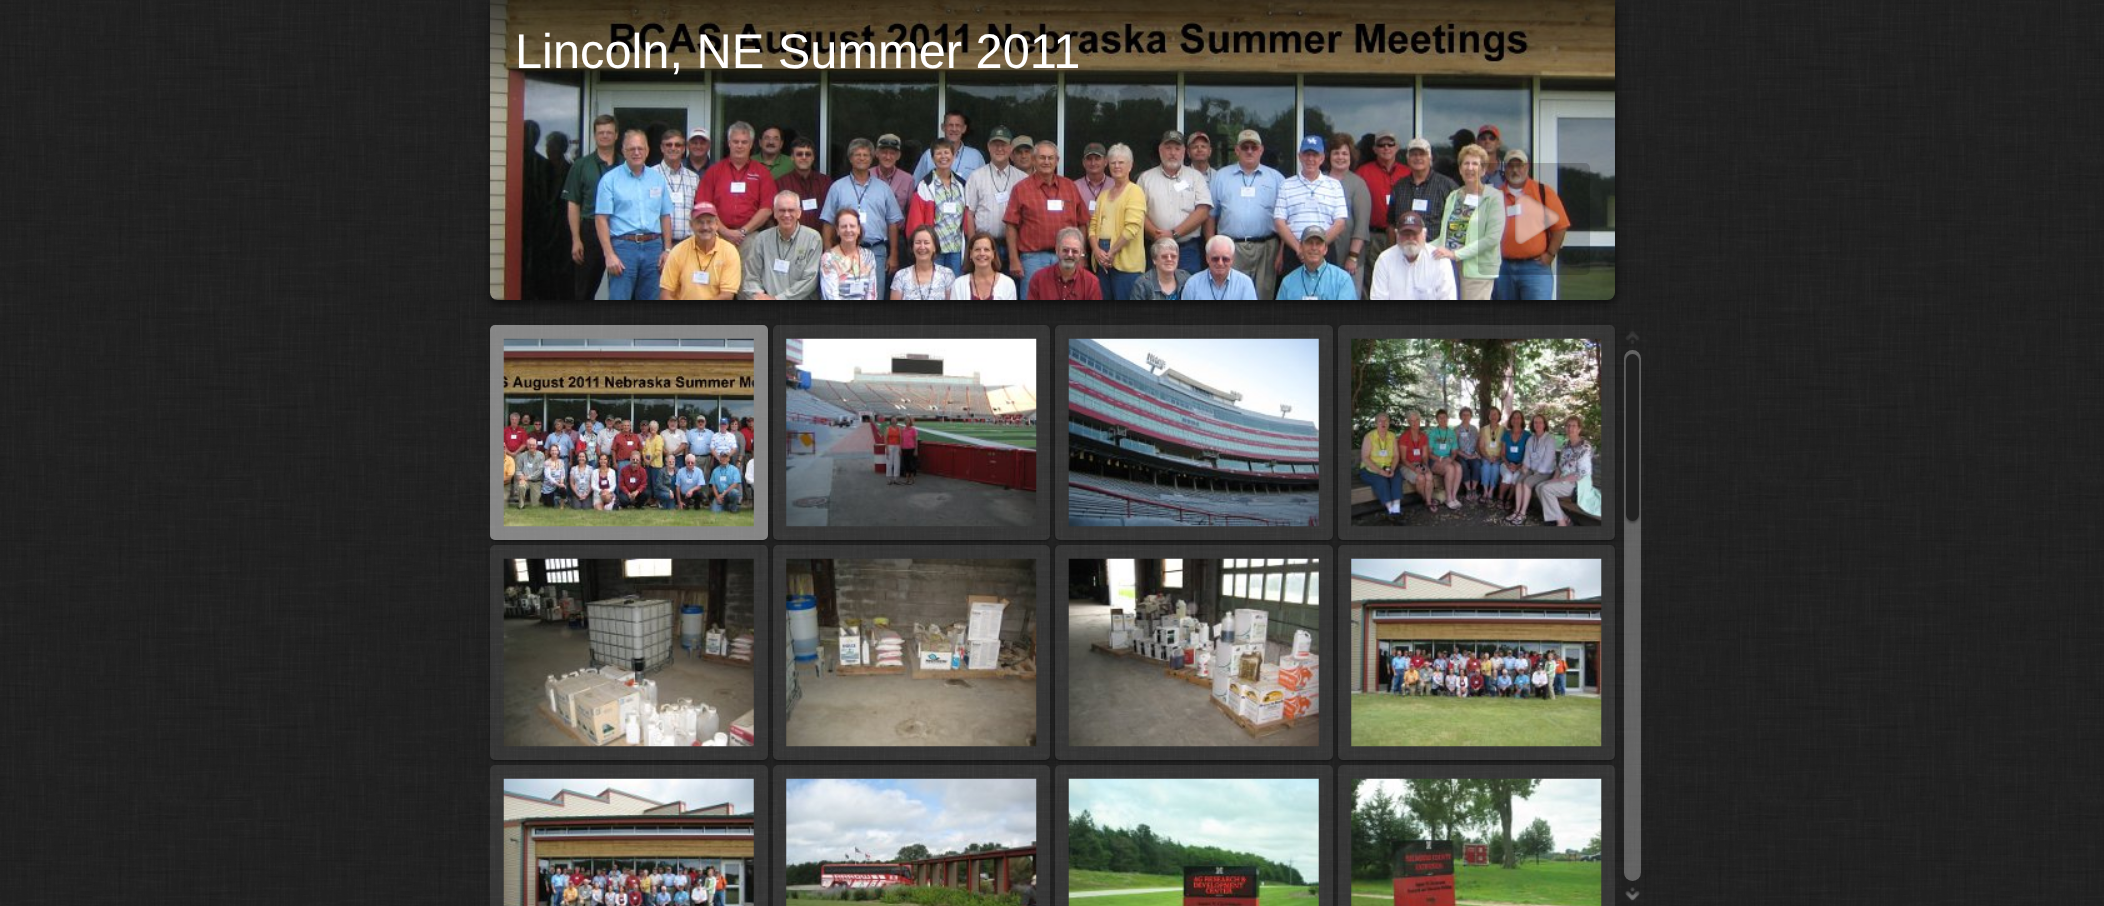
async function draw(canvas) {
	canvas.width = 2104;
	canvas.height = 906;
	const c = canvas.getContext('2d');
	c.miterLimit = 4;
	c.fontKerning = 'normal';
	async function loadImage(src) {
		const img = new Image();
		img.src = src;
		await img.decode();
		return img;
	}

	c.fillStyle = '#222';
	c.fillRect(0, 0, 2104, 906);
	c.drawImage(await loadImage('img1.png'), 0, 0, 2104, 906);
	c.fillStyle = '#00000099';
	c.filter = 'blur(5px)';
	c.beginPath();
	c.roundRect(491, 4, 1125, 300, 8);
	c.fill();
	c.filter = 'none';
	c.drawImage(await loadImage('img2.png'), 490, 0, 1125, 300);
	c.font = '48.75px Liberation Sans';
	c.fillStyle = '#fff';
	c.fillText('Lincoln, NE Summer 2011', 515, 68);
	c.fillStyle = '#00000033';
	c.beginPath();
	c.roundRect(1478, 163, 112, 112, 5);
	c.fill();
	c.drawImage(await loadImage('img3.png'), 1515, 191, 46, 53);
	c.save();
	c.beginPath();
	c.moveTo(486, 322);
	c.lineTo(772, 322);
	c.lineTo(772, 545);
	c.lineTo(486, 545);
	c.closePath();
	c.moveTo(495, 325);
	c.lineTo(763, 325);
	c.bezierCurveTo(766, 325, 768, 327, 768, 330);
	c.lineTo(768, 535);
	c.bezierCurveTo(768, 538, 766, 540, 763, 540);
	c.lineTo(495, 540);
	c.bezierCurveTo(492, 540, 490, 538, 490, 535);
	c.lineTo(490, 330);
	c.bezierCurveTo(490, 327, 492, 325, 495, 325);
	c.closePath();
	c.clip('evenodd');
	c.fillStyle = '#00000066';
	c.filter = 'blur(1px)';
	c.beginPath();
	c.roundRect(490, 326, 278, 215, 5);
	c.fill();
	c.filter = 'none';
	c.restore();
	c.fillStyle = '#ffffff1a';
	c.beginPath();
	c.roundRect(490, 325, 278, 215, 5);
	c.fill();
	c.fillStyle = '#ffffff66';
	c.beginPath();
	c.roundRect(490, 325, 278, 215, 5);
	c.fill();
	c.drawImage(await loadImage('img4.png'), 503, 338, 251, 189);
	c.save();
	c.beginPath();
	c.moveTo(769, 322);
	c.lineTo(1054, 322);
	c.lineTo(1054, 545);
	c.lineTo(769, 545);
	c.closePath();
	c.moveTo(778, 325);
	c.lineTo(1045, 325);
	c.bezierCurveTo(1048, 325, 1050, 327, 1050, 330);
	c.lineTo(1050, 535);
	c.bezierCurveTo(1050, 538, 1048, 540, 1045, 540);
	c.lineTo(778, 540);
	c.bezierCurveTo(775, 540, 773, 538, 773, 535);
	c.lineTo(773, 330);
	c.bezierCurveTo(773, 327, 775, 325, 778, 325);
	c.closePath();
	c.clip('evenodd');
	c.fillStyle = '#00000066';
	c.filter = 'blur(1px)';
	c.beginPath();
	c.roundRect(773, 326, 277, 215, 5);
	c.fill();
	c.filter = 'none';
	c.restore();
	c.fillStyle = '#ffffff1a';
	c.beginPath();
	c.roundRect(773, 325, 277, 215, 5);
	c.fill();
	c.drawImage(await loadImage('img5.png'), 786, 338, 251, 189);
	c.save();
	c.beginPath();
	c.moveTo(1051, 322);
	c.lineTo(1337, 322);
	c.lineTo(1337, 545);
	c.lineTo(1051, 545);
	c.closePath();
	c.moveTo(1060, 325);
	c.lineTo(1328, 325);
	c.bezierCurveTo(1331, 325, 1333, 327, 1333, 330);
	c.lineTo(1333, 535);
	c.bezierCurveTo(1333, 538, 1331, 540, 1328, 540);
	c.lineTo(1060, 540);
	c.bezierCurveTo(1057, 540, 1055, 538, 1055, 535);
	c.lineTo(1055, 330);
	c.bezierCurveTo(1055, 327, 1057, 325, 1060, 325);
	c.closePath();
	c.clip('evenodd');
	c.fillStyle = '#00000066';
	c.filter = 'blur(1px)';
	c.beginPath();
	c.roundRect(1055, 326, 278, 215, 5);
	c.fill();
	c.filter = 'none';
	c.restore();
	c.beginPath();
	c.roundRect(1055, 325, 278, 215, 5);
	c.fill();
	c.drawImage(await loadImage('img6.png'), 1068, 338, 251, 189);
	c.save();
	c.beginPath();
	c.moveTo(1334, 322);
	c.lineTo(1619, 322);
	c.lineTo(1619, 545);
	c.lineTo(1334, 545);
	c.closePath();
	c.moveTo(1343, 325);
	c.lineTo(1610, 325);
	c.bezierCurveTo(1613, 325, 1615, 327, 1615, 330);
	c.lineTo(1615, 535);
	c.bezierCurveTo(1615, 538, 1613, 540, 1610, 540);
	c.lineTo(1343, 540);
	c.bezierCurveTo(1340, 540, 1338, 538, 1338, 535);
	c.lineTo(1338, 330);
	c.bezierCurveTo(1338, 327, 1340, 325, 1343, 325);
	c.closePath();
	c.clip('evenodd');
	c.fillStyle = '#00000066';
	c.filter = 'blur(1px)';
	c.beginPath();
	c.roundRect(1338, 326, 277, 215, 5);
	c.fill();
	c.filter = 'none';
	c.restore();
	c.beginPath();
	c.roundRect(1338, 325, 277, 215, 5);
	c.fill();
	c.drawImage(await loadImage('img7.png'), 1351, 338, 251, 189);
	c.save();
	c.beginPath();
	c.moveTo(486, 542);
	c.lineTo(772, 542);
	c.lineTo(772, 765);
	c.lineTo(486, 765);
	c.closePath();
	c.moveTo(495, 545);
	c.lineTo(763, 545);
	c.bezierCurveTo(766, 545, 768, 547, 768, 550);
	c.lineTo(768, 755);
	c.bezierCurveTo(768, 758, 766, 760, 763, 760);
	c.lineTo(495, 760);
	c.bezierCurveTo(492, 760, 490, 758, 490, 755);
	c.lineTo(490, 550);
	c.bezierCurveTo(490, 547, 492, 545, 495, 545);
	c.closePath();
	c.clip('evenodd');
	c.fillStyle = '#00000066';
	c.filter = 'blur(1px)';
	c.beginPath();
	c.roundRect(490, 546, 278, 215, 5);
	c.fill();
	c.filter = 'none';
	c.restore();
	c.beginPath();
	c.roundRect(490, 545, 278, 215, 5);
	c.fill();
	c.drawImage(await loadImage('img8.png'), 503, 558, 251, 189);
	c.save();
	c.beginPath();
	c.moveTo(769, 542);
	c.lineTo(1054, 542);
	c.lineTo(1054, 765);
	c.lineTo(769, 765);
	c.closePath();
	c.moveTo(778, 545);
	c.lineTo(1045, 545);
	c.bezierCurveTo(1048, 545, 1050, 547, 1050, 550);
	c.lineTo(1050, 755);
	c.bezierCurveTo(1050, 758, 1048, 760, 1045, 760);
	c.lineTo(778, 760);
	c.bezierCurveTo(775, 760, 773, 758, 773, 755);
	c.lineTo(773, 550);
	c.bezierCurveTo(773, 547, 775, 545, 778, 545);
	c.closePath();
	c.clip('evenodd');
	c.fillStyle = '#00000066';
	c.filter = 'blur(1px)';
	c.beginPath();
	c.roundRect(773, 546, 277, 215, 5);
	c.fill();
	c.filter = 'none';
	c.restore();
	c.beginPath();
	c.roundRect(773, 545, 277, 215, 5);
	c.fill();
	c.drawImage(await loadImage('img9.png'), 786, 558, 251, 189);
	c.save();
	c.beginPath();
	c.moveTo(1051, 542);
	c.lineTo(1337, 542);
	c.lineTo(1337, 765);
	c.lineTo(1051, 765);
	c.closePath();
	c.moveTo(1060, 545);
	c.lineTo(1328, 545);
	c.bezierCurveTo(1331, 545, 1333, 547, 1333, 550);
	c.lineTo(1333, 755);
	c.bezierCurveTo(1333, 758, 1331, 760, 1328, 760);
	c.lineTo(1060, 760);
	c.bezierCurveTo(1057, 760, 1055, 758, 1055, 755);
	c.lineTo(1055, 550);
	c.bezierCurveTo(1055, 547, 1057, 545, 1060, 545);
	c.closePath();
	c.clip('evenodd');
	c.fillStyle = '#00000066';
	c.filter = 'blur(1px)';
	c.beginPath();
	c.roundRect(1055, 546, 278, 215, 5);
	c.fill();
	c.filter = 'none';
	c.restore();
	c.beginPath();
	c.roundRect(1055, 545, 278, 215, 5);
	c.fill();
	c.drawImage(await loadImage('img10.png'), 1068, 558, 251, 189);
	c.save();
	c.beginPath();
	c.moveTo(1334, 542);
	c.lineTo(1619, 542);
	c.lineTo(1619, 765);
	c.lineTo(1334, 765);
	c.closePath();
	c.moveTo(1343, 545);
	c.lineTo(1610, 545);
	c.bezierCurveTo(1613, 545, 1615, 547, 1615, 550);
	c.lineTo(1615, 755);
	c.bezierCurveTo(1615, 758, 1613, 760, 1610, 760);
	c.lineTo(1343, 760);
	c.bezierCurveTo(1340, 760, 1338, 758, 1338, 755);
	c.lineTo(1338, 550);
	c.bezierCurveTo(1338, 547, 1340, 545, 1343, 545);
	c.closePath();
	c.clip('evenodd');
	c.fillStyle = '#00000066';
	c.filter = 'blur(1px)';
	c.beginPath();
	c.roundRect(1338, 546, 277, 215, 5);
	c.fill();
	c.filter = 'none';
	c.restore();
	c.beginPath();
	c.roundRect(1338, 545, 277, 215, 5);
	c.fill();
	c.drawImage(await loadImage('img11.png'), 1351, 558, 251, 189);
	c.beginPath();
	c.roundRect(490, 765, 278, 141, [5, 5, 0, 0]);
	c.fill();
	c.drawImage(await loadImage('img12.png'), 503, 778, 251, 128);
	c.beginPath();
	c.roundRect(773, 765, 277, 141, [5, 5, 0, 0]);
	c.fill();
	c.drawImage(await loadImage('img13.png'), 786, 778, 251, 128);
	c.beginPath();
	c.roundRect(1055, 765, 278, 141, [5, 5, 0, 0]);
	c.fill();
	c.drawImage(await loadImage('img14.png'), 1068, 778, 251, 128);
	c.beginPath();
	c.roundRect(1338, 765, 277, 141, [5, 5, 0, 0]);
	c.fill();
	c.drawImage(await loadImage('img15.png'), 1351, 778, 251, 128);
	c.drawImage(await loadImage('img16.png'), 1625, 331, 15, 13);
	c.fillStyle = '#ffffff4d';
	c.beginPath();
	c.roundRect(1624, 350, 17, 531, 8.5);
	c.fill();
	c.fillStyle = '#00000066';
	c.filter = 'blur(1px)';
	c.beginPath();
	c.roundRect(1626, 355, 13, 168, 6.5);
	c.fill();
	c.filter = 'none';
	c.fillStyle = '#222';
	c.beginPath();
	c.roundRect(1626, 354, 13, 167, 6.5);
	c.fill();
	c.drawImage(await loadImage('img17.png'), 1625, 887, 15, 14);
}

draw(document.querySelector('canvas'));
